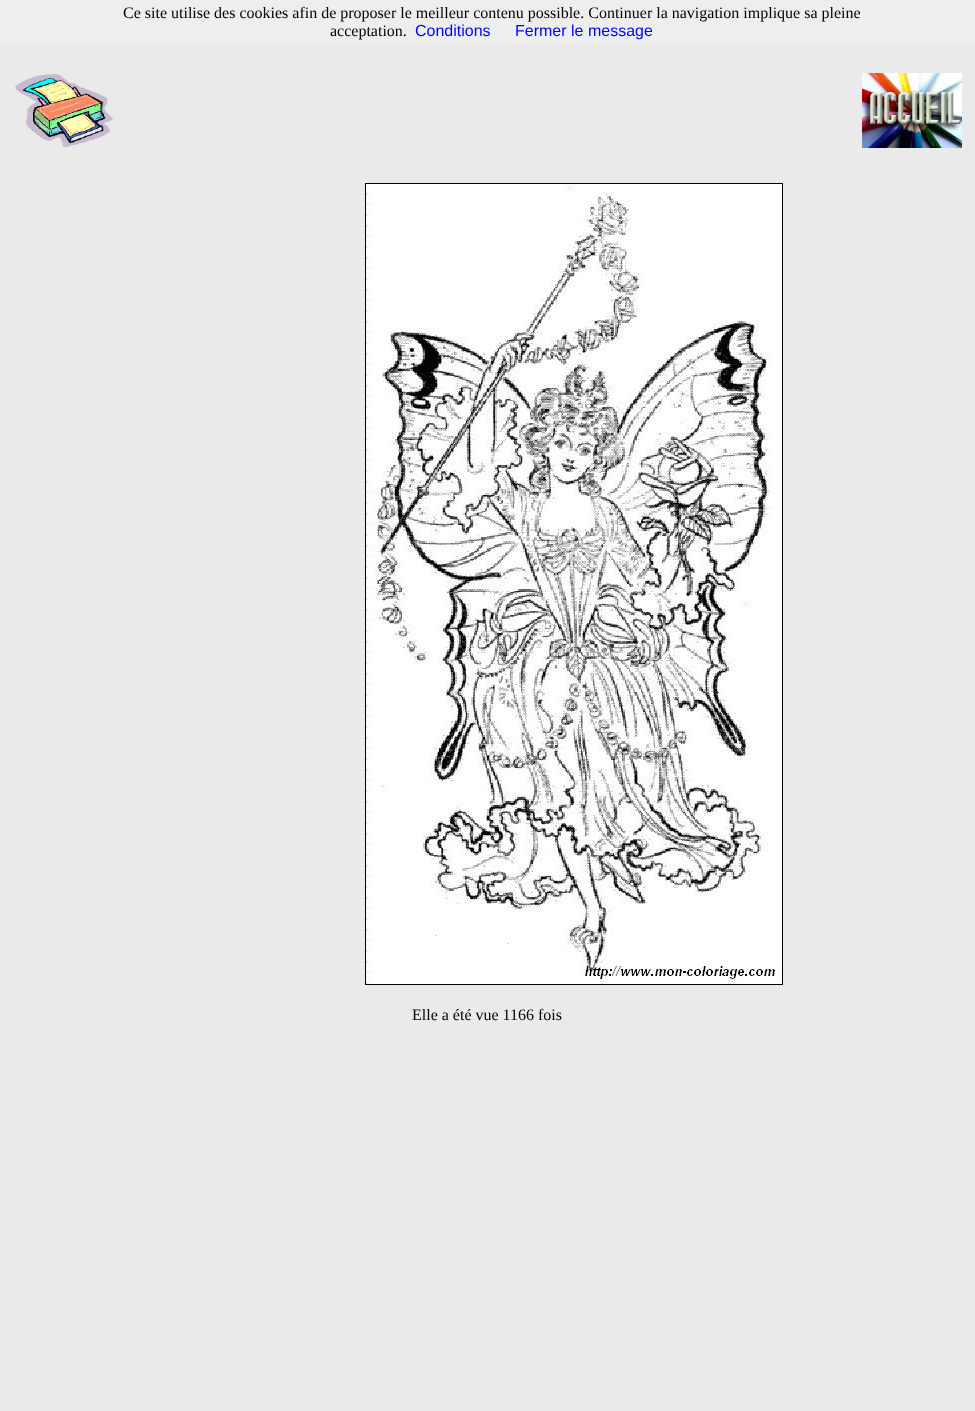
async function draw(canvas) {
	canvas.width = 975;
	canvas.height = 1411;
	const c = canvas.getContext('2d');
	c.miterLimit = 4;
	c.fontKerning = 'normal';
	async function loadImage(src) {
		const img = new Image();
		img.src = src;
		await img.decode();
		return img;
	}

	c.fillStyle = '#eaeaea';
	c.fillRect(0, 0, 975, 1411);
	c.fillStyle = '#eee';
	c.fillRect(0, 0, 975, 44);
	c.font = '16px Liberation Serif';
	c.fillStyle = '#000';
	c.fillText('Ce site utilise des cookies afin de proposer le meilleur contenu possible. Continuer la navigation implique sa pleine', 123, 18);
	c.fillText('acceptation.', 330, 36);
	c.font = '16px Liberation Sans';
	c.fillStyle = '#00f';
	c.fillText('Conditions', 415, 36);
	c.fillText('Fermer le message', 515, 36);
	c.drawImage(await loadImage('img1.png'), 15, 73, 98, 75);
	c.drawImage(await loadImage('img2.png'), 862, 73, 100, 75);
	c.strokeStyle = '#000';
	c.strokeRect(365.5, 183.5, 417, 801);
	c.drawImage(await loadImage('img3.png'), 366, 184, 416, 800);
	c.font = '16px Liberation Serif';
	c.fillStyle = '#000';
	c.fillText('Elle a été vue 1166 fois', 412, 1020);
}

draw(document.querySelector('canvas'));
